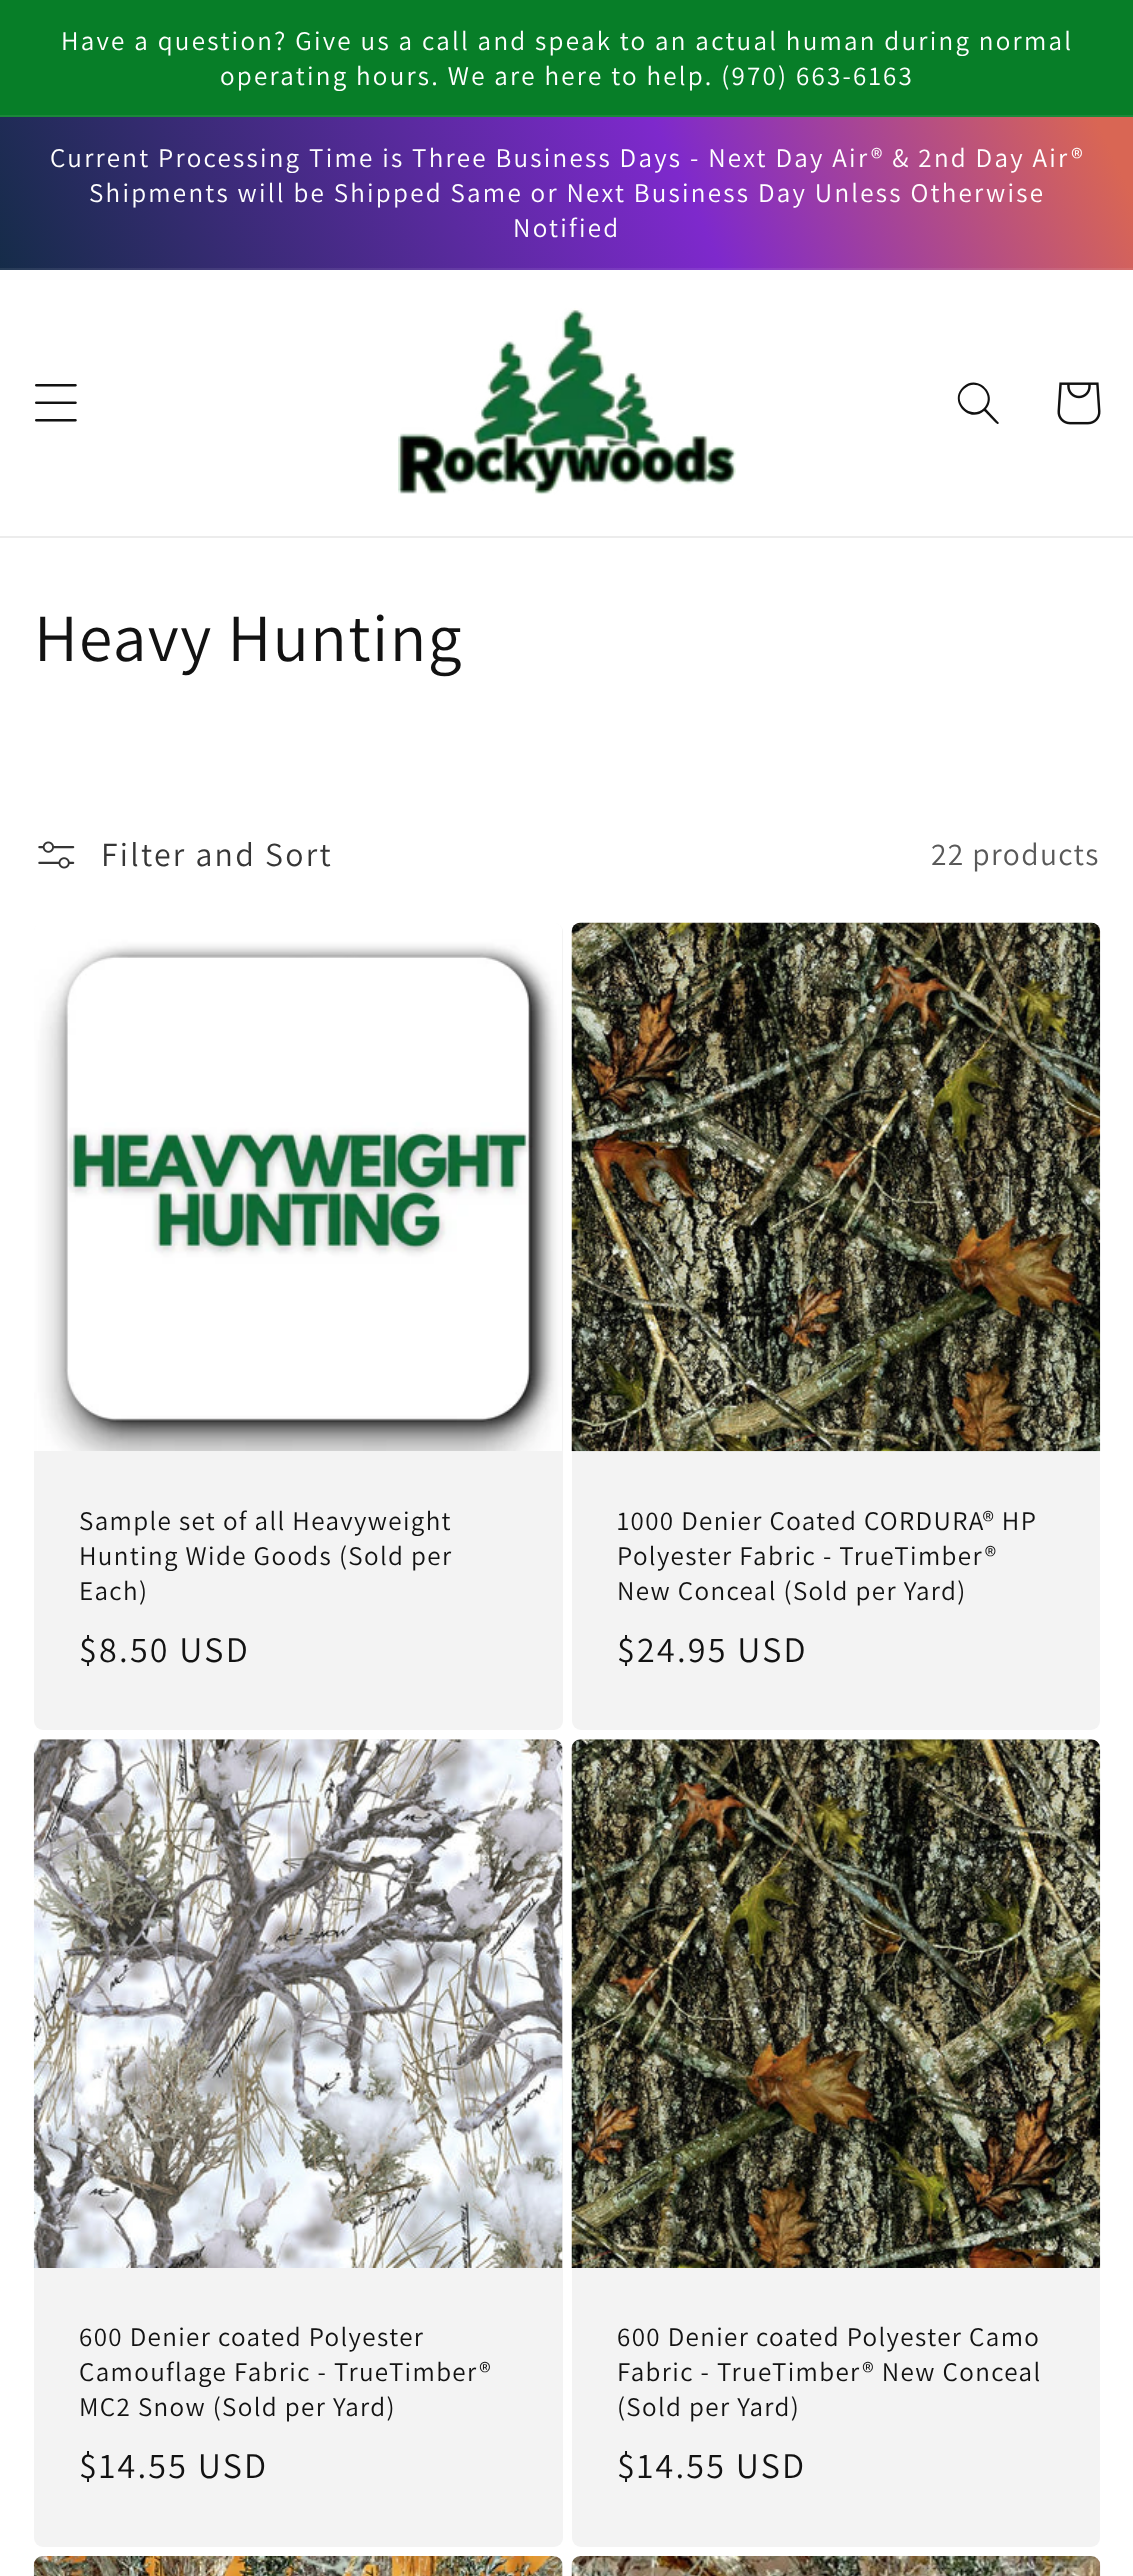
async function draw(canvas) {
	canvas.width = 1133;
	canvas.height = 2576;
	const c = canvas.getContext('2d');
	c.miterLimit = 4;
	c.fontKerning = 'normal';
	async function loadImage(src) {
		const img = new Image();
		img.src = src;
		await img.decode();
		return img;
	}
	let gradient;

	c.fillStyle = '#fff';
	c.fillRect(0, 0, 1133, 2576);
	c.fillStyle = '#077e28';
	c.fillRect(0, 0, 1133, 115);
	c.fillStyle = '#1b8839';
	c.fillRect(0, 115, 1133, 2);
	c.letterSpacing = '2.25px';
	c.font = '27px Assistant';
	c.fillStyle = '#fff';
	c.fillText('Have a question? Give us a call and speak to an actual human during normal', 61, 50);
	c.fillText('operating hours. We are here to help. (970) 663-6163', 220, 85);
	gradient = c.createLinearGradient(-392, 1735, 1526, 841);
	gradient.addColorStop(0.44, '#0e2c40');
	gradient.addColorStop(0.77, '#7e29cc');
	gradient.addColorStop(0.96, '#d96654');
	c.fillStyle = gradient;
	c.fillRect(0, 117, 1133, 151);
	gradient = c.createLinearGradient(-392, 1735, 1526, 841);
	gradient.addColorStop(0.44, '#213d4f');
	gradient.addColorStop(0.77, '#883ad0');
	gradient.addColorStop(0.96, '#dc7262');
	c.fillStyle = gradient;
	c.fillRect(0, 268, 1133, 2);
	c.fillStyle = '#fff';
	for (const [text, x, y] of [
		['Current Processing Time is Three Business Days - Next Day Air® & 2nd Day Air®', 50, 167],
		['Shipments will be Shipped Same or Next Business Day Unless Otherwise', 89, 202],
		['Notified', 513, 237],
	]) {
		c.fillText(text, x, y);
	}
	c.fillStyle = '#ececec';
	c.fillRect(0, 536, 1133, 2);
	c.drawImage(await loadImage('img1.png'), 35, 384, 42, 38);
	c.drawImage(await loadImage('img2.png'), 398, 308, 338, 187);
	c.fillStyle = '#121212';
	c.beginPath();
	c.moveTo(984, 408);
	c.bezierCurveTo(971, 421, 951, 401, 964, 389);
	c.bezierCurveTo(977, 376, 996, 395, 984, 408);
	c.closePath();
	c.moveTo(984, 411);
	c.bezierCurveTo(969, 424, 948, 401, 963, 387);
	c.bezierCurveTo(977, 373, 999, 394, 986, 409);
	c.lineTo(999, 423);
	c.lineTo(998, 424);
	c.bezierCurveTo(997, 425, 986, 412, 984, 411);
	c.closePath();
	c.fill('evenodd');
	c.drawImage(await loadImage('img3.png'), 1057, 382, 44, 43);
	c.letterSpacing = '1.35px';
	c.font = '67.5px Assistant';
	c.fillText('Heavy Hunting', 34, 661);
	c.drawImage(await loadImage('img4.png'), 38, 841, 37, 28);
	c.letterSpacing = '2.25px';
	c.font = '33.75px Assistant';
	c.fillStyle = '#363636';
	c.fillText('Filter and Sort', 101, 866);
	c.letterSpacing = '1.35px';
	c.font = '31.5px Assistant';
	c.fillStyle = '#595959';
	c.fillText('22 products', 931, 865);
	c.fillStyle = '#f3f3f3';
	c.beginPath();
	c.roundRect(34, 923, 529, 807, 9);
	c.fill();
	c.drawImage(await loadImage('img5.png'), 34, 923, 528, 528);
	c.font = '27px Assistant';
	c.fillStyle = '#121212';
	for (const [text, x, y] of [
		['Sample set of all Heavyweight', 79, 1530],
		['Hunting Wide Goods (Sold per', 79, 1565],
		['Each)', 79, 1600],
	]) {
		c.fillText(text, x, y);
	}
	c.letterSpacing = '2.25px';
	c.font = '36px Assistant';
	c.fillText('$8.50 USD', 79, 1662);
	c.fillStyle = '#f3f3f3';
	c.beginPath();
	c.roundRect(572, 923, 528, 807, 9);
	c.fill();
	c.drawImage(await loadImage('img6.png'), 571, 922, 530, 530);
	c.letterSpacing = '1.35px';
	c.font = '27px Assistant';
	c.fillStyle = '#121212';
	for (const [text, x, y] of [
		['1000 Denier Coated CORDURA® HP', 617, 1530],
		['Polyester Fabric - TrueTimber®', 617, 1565],
		['New Conceal (Sold per Yard)', 617, 1600],
	]) {
		c.fillText(text, x, y);
	}
	c.letterSpacing = '2.25px';
	c.font = '36px Assistant';
	c.fillText('$24.95 USD', 617, 1662);
	c.fillStyle = '#f3f3f3';
	c.beginPath();
	c.roundRect(34, 1739, 529, 808, 9);
	c.fill();
	c.drawImage(await loadImage('img7.png'), 33, 1739, 530, 529);
	c.letterSpacing = '1.35px';
	c.font = '27px Assistant';
	c.fillStyle = '#121212';
	for (const [text, x, y] of [
		['600 Denier coated Polyester', 79, 2346],
		['Camouflage Fabric - TrueTimber®', 79, 2381],
		['MC2 Snow (Sold per Yard)', 79, 2416],
	]) {
		c.fillText(text, x, y);
	}
	c.letterSpacing = '2.25px';
	c.font = '36px Assistant';
	c.fillText('$14.55 USD', 79, 2478);
	c.fillStyle = '#f3f3f3';
	c.beginPath();
	c.roundRect(572, 1739, 528, 808, 9);
	c.fill();
	c.drawImage(await loadImage('img8.png'), 571, 1739, 530, 529);
	c.letterSpacing = '1.35px';
	c.font = '27px Assistant';
	c.fillStyle = '#121212';
	for (const [text, x, y] of [
		['600 Denier coated Polyester Camo', 617, 2346],
		['Fabric - TrueTimber® New Conceal', 617, 2381],
		['(Sold per Yard)', 617, 2416],
	]) {
		c.fillText(text, x, y);
	}
	c.letterSpacing = '2.25px';
	c.font = '36px Assistant';
	c.fillText('$14.55 USD', 617, 2478);
	c.fillStyle = '#f3f3f3';
	c.beginPath();
	c.roundRect(34, 2556, 529, 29, 9);
	c.fill();
	c.drawImage(await loadImage('img9.png'), 33, 2556, 530, 20);
	c.drawImage(await loadImage('img10.png'), 571, 2556, 530, 20);
}

draw(document.querySelector('canvas'));
